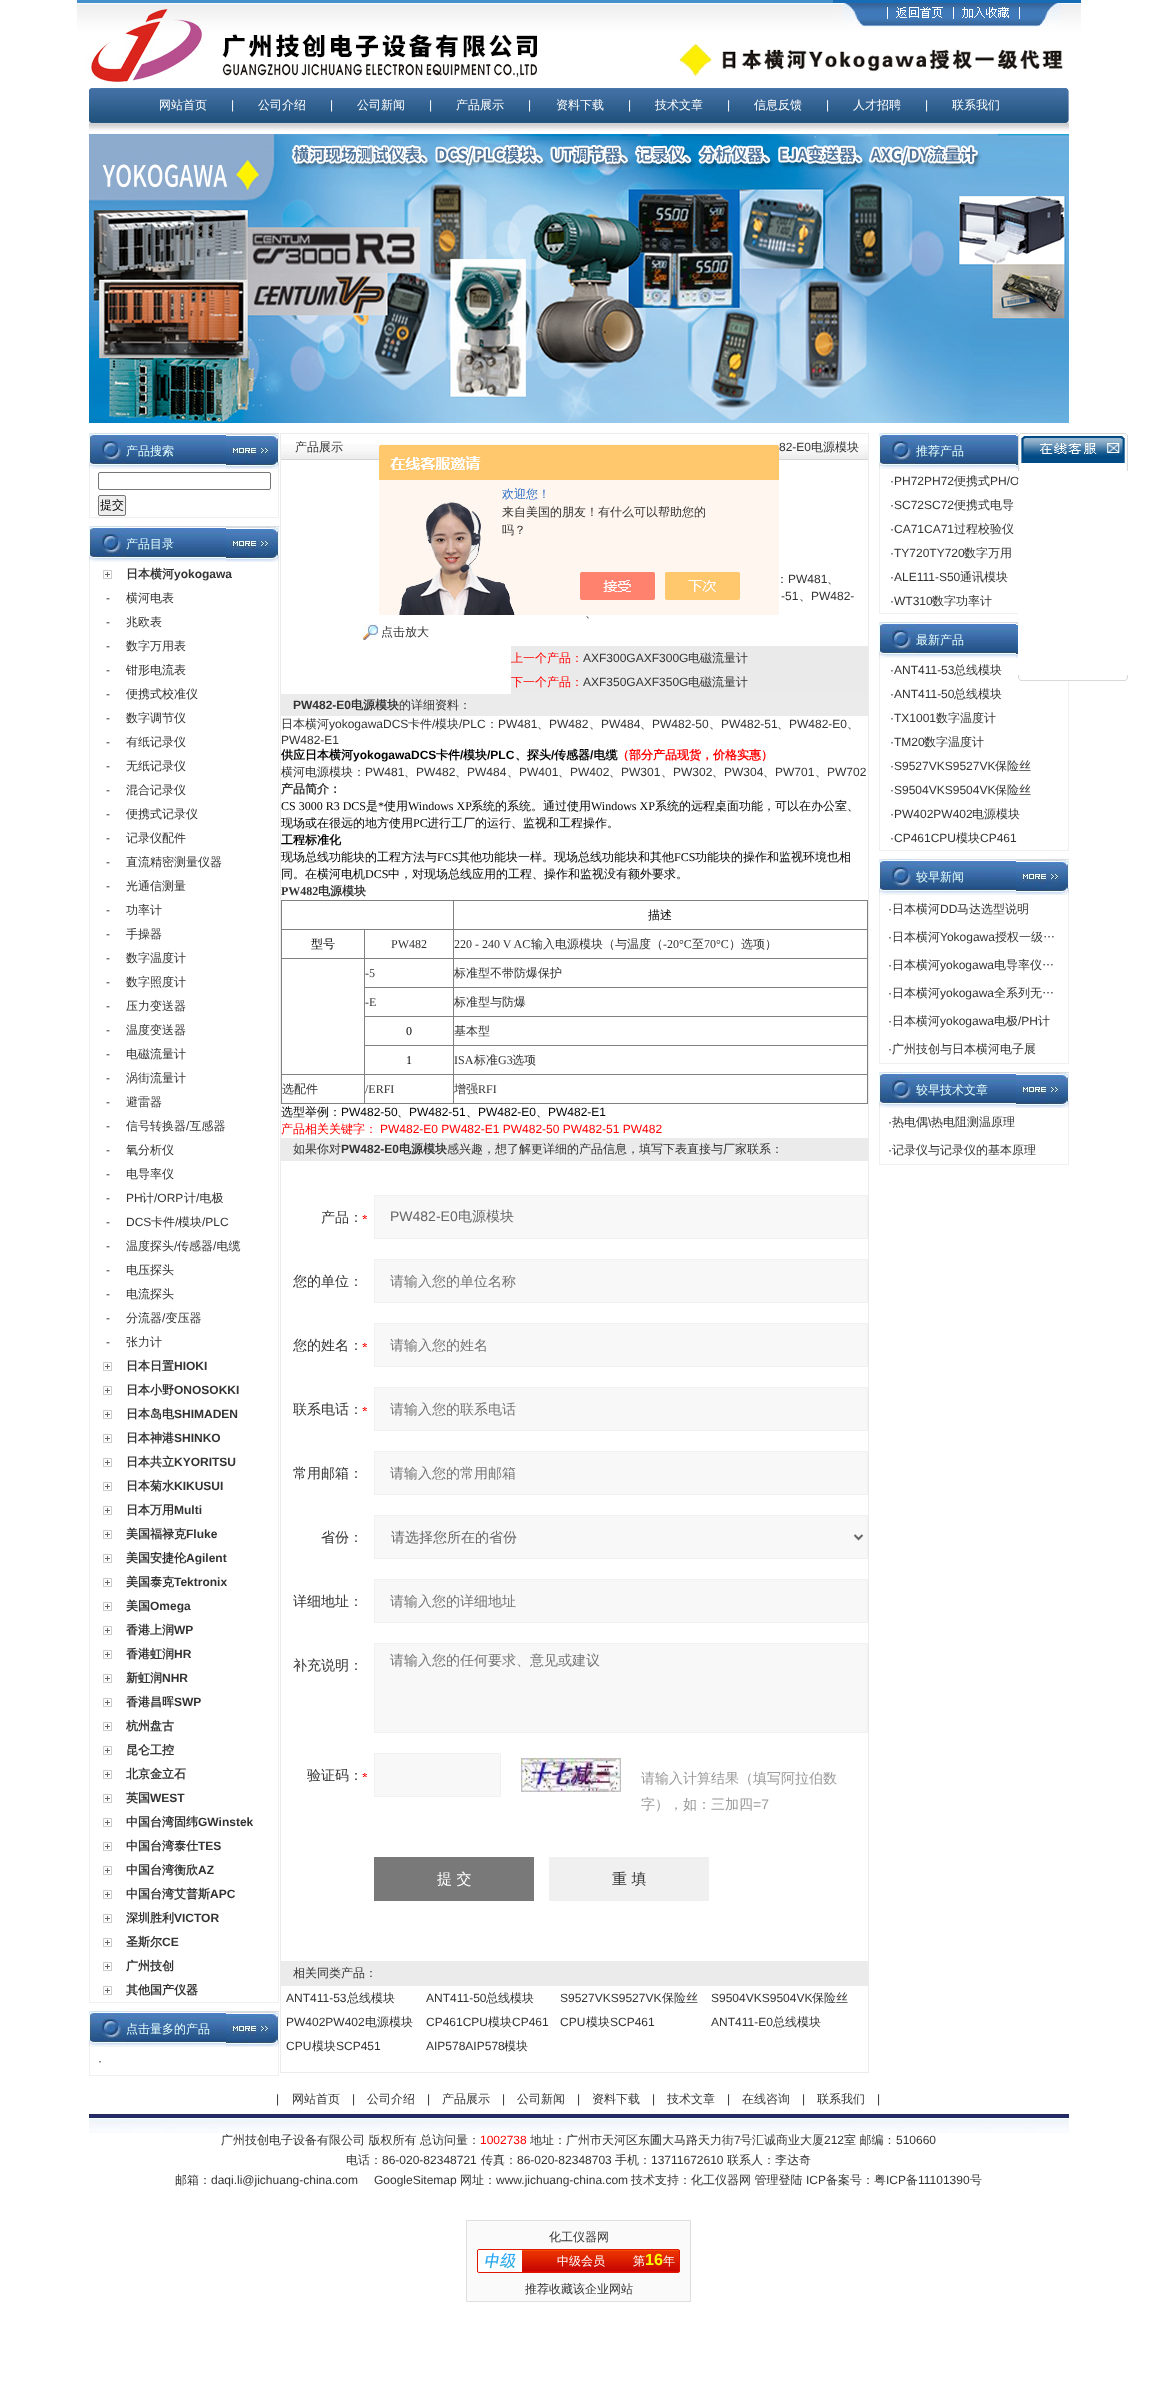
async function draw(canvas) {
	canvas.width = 1157;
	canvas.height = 2381;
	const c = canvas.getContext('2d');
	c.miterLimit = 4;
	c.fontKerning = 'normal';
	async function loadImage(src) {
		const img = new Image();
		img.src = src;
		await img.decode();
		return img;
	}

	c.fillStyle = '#fff';
	c.fillRect(0, 0, 1157, 2381);
	c.drawImage(await loadImage('img1.png'), 77, 0, 1004, 87);
	c.drawImage(await loadImage('img2.png'), 833, 0, 248, 27);
	c.drawImage(await loadImage('img3.png'), 92, 88, 970, 35);
	c.drawImage(await loadImage('img4.png'), 89, 88, 3, 35);
	c.font = '500 12px WenQuanYi Zen Hei';
	c.fillText('网站首页', 159, 109);
	c.font = '12px Liberation Sans';
	c.fillText('|', 231, 109);
	c.font = '500 12px WenQuanYi Zen Hei';
	c.fillText('公司介绍', 258, 109);
	c.font = '12px Liberation Sans';
	c.fillText('|', 330, 109);
	c.font = '500 12px WenQuanYi Zen Hei';
	c.fillText('公司新闻', 357, 109);
	c.font = '12px Liberation Sans';
	c.fillText('|', 429, 109);
	c.font = '500 12px WenQuanYi Zen Hei';
	c.fillText('产品展示', 456, 109);
	c.font = '12px Liberation Sans';
	c.fillText('|', 528, 109);
	c.font = '500 12px WenQuanYi Zen Hei';
	c.fillText('资料下载', 556, 109);
	c.font = '12px Liberation Sans';
	c.fillText('|', 628, 109);
	c.font = '500 12px WenQuanYi Zen Hei';
	c.fillText('技术文章', 655, 109);
	c.font = '12px Liberation Sans';
	c.fillText('|', 727, 109);
	c.font = '500 12px WenQuanYi Zen Hei';
	c.fillText('信息反馈', 754, 109);
	c.font = '12px Liberation Sans';
	c.fillText('|', 826, 109);
	c.font = '500 12px WenQuanYi Zen Hei';
	c.fillText('人才招聘', 853, 109);
	c.font = '12px Liberation Sans';
	c.fillText('|', 925, 109);
	c.font = '500 12px WenQuanYi Zen Hei';
	c.fillText('联系我们', 952, 109);
	c.drawImage(await loadImage('img5.png'), 1062, 88, 7, 35);
	c.drawImage(await loadImage('img6.png'), 89, 123, 980, 8);
	c.drawImage(await loadImage('img7.png'), 89, 134, 980, 289);
	c.drawImage(await loadImage('img8.png'), 126, 433, 153, 36);
	c.drawImage(await loadImage('img9.png'), 89, 433, 37, 36);
	c.fillStyle = '#e2fffd';
	c.fillText('产品搜索', 126, 455);
	c.drawImage(await loadImage('img10.png'), 226, 434, 53, 35);
	for (const [x, y, w, h, color] of [
		[278, 469, 1, 49, '#eff1ee'],
		[89, 517, 190, 1, '#eff1ee'],
		[89, 469, 1, 49, '#eff1ee'],
	]) {
		c.fillStyle = color;
		c.fillRect(x, y, w, h);
	}
	c.beginPath();
	c.roundRect(98.5, 472.5, 172, 17, 1.5);
	c.strokeStyle = '#767676';
	c.stroke();
	c.fillStyle = '#efefef';
	c.beginPath();
	c.roundRect(98.5, 495.5, 27, 20, 1.5);
	c.fill();
	c.stroke();
	c.save();
	c.beginPath();
	c.rect(100, 497, 24, 17);
	c.clip();
	c.fillStyle = '#000';
	c.fillText('提交', 100, 509);
	c.restore();
	c.drawImage(await loadImage('img8.png'), 126, 526, 153, 36);
	c.drawImage(await loadImage('img9.png'), 89, 526, 37, 36);
	c.fillStyle = '#e2fffd';
	c.fillText('产品目录', 126, 548);
	c.drawImage(await loadImage('img10.png'), 226, 527, 53, 35);
	for (const [x, y, w, h, color] of [
		[278, 562, 1, 1441, '#eff1ee'],
		[89, 2002, 190, 1, '#eff1ee'],
		[89, 562, 1, 1441, '#eff1ee'],
	]) {
		c.fillStyle = color;
		c.fillRect(x, y, w, h);
	}
	c.drawImage(await loadImage('img11.png'), 103, 570, 9, 9);
	c.font = 'bold 12px WenQuanYi Zen Hei';
	c.fillStyle = '#333';
	c.fillText('日本横河', 126, 578);
	c.font = 'bold 12px Liberation Sans';
	c.fillText('yokogawa', 174, 578);
	c.font = '12px Liberation Sans';
	c.fillText('-', 106, 602);
	c.font = '500 12px WenQuanYi Zen Hei';
	c.fillText('横河电表', 126, 602);
	c.font = '12px Liberation Sans';
	c.fillText('-', 106, 626);
	c.font = '500 12px WenQuanYi Zen Hei';
	c.fillText('兆欧表', 126, 626);
	c.font = '12px Liberation Sans';
	c.fillText('-', 106, 650);
	c.font = '500 12px WenQuanYi Zen Hei';
	c.fillText('数字万用表', 126, 650);
	c.font = '12px Liberation Sans';
	c.fillText('-', 106, 674);
	c.font = '500 12px WenQuanYi Zen Hei';
	c.fillText('钳形电流表', 126, 674);
	c.font = '12px Liberation Sans';
	c.fillText('-', 106, 698);
	c.font = '500 12px WenQuanYi Zen Hei';
	c.fillText('便携式校准仪', 126, 698);
	c.font = '12px Liberation Sans';
	c.fillText('-', 106, 722);
	c.font = '500 12px WenQuanYi Zen Hei';
	c.fillText('数字调节仪', 126, 722);
	c.font = '12px Liberation Sans';
	c.fillText('-', 106, 746);
	c.font = '500 12px WenQuanYi Zen Hei';
	c.fillText('有纸记录仪', 126, 746);
	c.font = '12px Liberation Sans';
	c.fillText('-', 106, 770);
	c.font = '500 12px WenQuanYi Zen Hei';
	c.fillText('无纸记录仪', 126, 770);
	c.font = '12px Liberation Sans';
	c.fillText('-', 106, 794);
	c.font = '500 12px WenQuanYi Zen Hei';
	c.fillText('混合记录仪', 126, 794);
	c.font = '12px Liberation Sans';
	c.fillText('-', 106, 818);
	c.font = '500 12px WenQuanYi Zen Hei';
	c.fillText('便携式记录仪', 126, 818);
	c.font = '12px Liberation Sans';
	c.fillText('-', 106, 842);
	c.font = '500 12px WenQuanYi Zen Hei';
	c.fillText('记录仪配件', 126, 842);
	c.font = '12px Liberation Sans';
	c.fillText('-', 106, 866);
	c.font = '500 12px WenQuanYi Zen Hei';
	c.fillText('直流精密测量仪器', 126, 866);
	c.font = '12px Liberation Sans';
	c.fillText('-', 106, 890);
	c.font = '500 12px WenQuanYi Zen Hei';
	c.fillText('光通信测量', 126, 890);
	c.font = '12px Liberation Sans';
	c.fillText('-', 106, 914);
	c.font = '500 12px WenQuanYi Zen Hei';
	c.fillText('功率计', 126, 914);
	c.font = '12px Liberation Sans';
	c.fillText('-', 106, 938);
	c.font = '500 12px WenQuanYi Zen Hei';
	c.fillText('手操器', 126, 938);
	c.font = '12px Liberation Sans';
	c.fillText('-', 106, 962);
	c.font = '500 12px WenQuanYi Zen Hei';
	c.fillText('数字温度计', 126, 962);
	c.font = '12px Liberation Sans';
	c.fillText('-', 106, 986);
	c.font = '500 12px WenQuanYi Zen Hei';
	c.fillText('数字照度计', 126, 986);
	c.font = '12px Liberation Sans';
	c.fillText('-', 106, 1010);
	c.font = '500 12px WenQuanYi Zen Hei';
	c.fillText('压力变送器', 126, 1010);
	c.font = '12px Liberation Sans';
	c.fillText('-', 106, 1034);
	c.font = '500 12px WenQuanYi Zen Hei';
	c.fillText('温度变送器', 126, 1034);
	c.font = '12px Liberation Sans';
	c.fillText('-', 106, 1058);
	c.font = '500 12px WenQuanYi Zen Hei';
	c.fillText('电磁流量计', 126, 1058);
	c.font = '12px Liberation Sans';
	c.fillText('-', 106, 1082);
	c.font = '500 12px WenQuanYi Zen Hei';
	c.fillText('涡街流量计', 126, 1082);
	c.font = '12px Liberation Sans';
	c.fillText('-', 106, 1106);
	c.font = '500 12px WenQuanYi Zen Hei';
	c.fillText('避雷器', 126, 1106);
	c.font = '12px Liberation Sans';
	c.fillText('-', 106, 1130);
	c.font = '500 12px WenQuanYi Zen Hei';
	c.fillText('信号转换器 互感器', 126, 1130);
	c.font = '12px Liberation Sans';
	c.fillText('/', 186, 1130);
	c.fillText('-', 106, 1154);
	c.font = '500 12px WenQuanYi Zen Hei';
	c.fillText('氧分析仪', 126, 1154);
	c.font = '12px Liberation Sans';
	c.fillText('-', 106, 1178);
	c.font = '500 12px WenQuanYi Zen Hei';
	c.fillText('电导率仪', 126, 1178);
	c.font = '12px Liberation Sans';
	c.fillText('-', 106, 1202);
	c.fillText('PH', 126, 1202);
	c.font = '500 12px WenQuanYi Zen Hei';
	c.fillText('计', 142, 1202);
	c.font = '12px Liberation Sans';
	c.fillText('/ORP', 154, 1202);
	c.font = '500 12px WenQuanYi Zen Hei';
	c.fillText('计 电极', 184, 1202);
	c.font = '12px Liberation Sans';
	for (const [text, x, y] of [
		['/', 196, 1202],
		['-', 106, 1226],
		['DCS', 126, 1226],
	]) {
		c.fillText(text, x, y);
	}
	c.font = '500 12px WenQuanYi Zen Hei';
	c.fillText('卡件', 151, 1226);
	c.font = '12px Liberation Sans';
	c.fillText('/', 175, 1226);
	c.font = '500 12px WenQuanYi Zen Hei';
	c.fillText('模块', 178, 1226);
	c.font = '12px Liberation Sans';
	c.fillText('/PLC', 202, 1226);
	c.fillText('-', 106, 1250);
	c.font = '500 12px WenQuanYi Zen Hei';
	c.fillText('温度探头', 126, 1250);
	c.font = '12px Liberation Sans';
	c.fillText('/', 174, 1250);
	c.font = '500 12px WenQuanYi Zen Hei';
	c.fillText('传感器 电缆', 177, 1250);
	c.font = '12px Liberation Sans';
	c.fillText('/', 213, 1250);
	c.fillText('-', 106, 1274);
	c.font = '500 12px WenQuanYi Zen Hei';
	c.fillText('电压探头', 126, 1274);
	c.font = '12px Liberation Sans';
	c.fillText('-', 106, 1298);
	c.font = '500 12px WenQuanYi Zen Hei';
	c.fillText('电流探头', 126, 1298);
	c.font = '12px Liberation Sans';
	c.fillText('-', 106, 1322);
	c.font = '500 12px WenQuanYi Zen Hei';
	c.fillText('分流器 变压器', 126, 1322);
	c.font = '12px Liberation Sans';
	c.fillText('/', 162, 1322);
	c.fillText('-', 106, 1346);
	c.font = '500 12px WenQuanYi Zen Hei';
	c.fillText('张力计', 126, 1346);
	c.drawImage(await loadImage('img11.png'), 103, 1362, 9, 9);
	c.font = 'bold 12px WenQuanYi Zen Hei';
	c.fillText('日本日置', 126, 1370);
	c.font = 'bold 12px Liberation Sans';
	c.fillText('HIOKI', 174, 1370);
	c.drawImage(await loadImage('img11.png'), 103, 1386, 9, 9);
	c.font = 'bold 12px WenQuanYi Zen Hei';
	c.fillText('日本小野', 126, 1394);
	c.font = 'bold 12px Liberation Sans';
	c.fillText('ONOSOKKI', 174, 1394);
	c.drawImage(await loadImage('img11.png'), 103, 1410, 9, 9);
	c.font = 'bold 12px WenQuanYi Zen Hei';
	c.fillText('日本岛电', 126, 1418);
	c.font = 'bold 12px Liberation Sans';
	c.fillText('SHIMADEN', 174, 1418);
	c.drawImage(await loadImage('img11.png'), 103, 1434, 9, 9);
	c.font = 'bold 12px WenQuanYi Zen Hei';
	c.fillText('日本神港', 126, 1442);
	c.font = 'bold 12px Liberation Sans';
	c.fillText('SHINKO', 174, 1442);
	c.drawImage(await loadImage('img11.png'), 103, 1458, 9, 9);
	c.font = 'bold 12px WenQuanYi Zen Hei';
	c.fillText('日本共立', 126, 1466);
	c.font = 'bold 12px Liberation Sans';
	c.fillText('KYORITSU', 174, 1466);
	c.drawImage(await loadImage('img11.png'), 103, 1482, 9, 9);
	c.font = 'bold 12px WenQuanYi Zen Hei';
	c.fillText('日本菊水', 126, 1490);
	c.font = 'bold 12px Liberation Sans';
	c.fillText('KIKUSUI', 174, 1490);
	c.drawImage(await loadImage('img11.png'), 103, 1506, 9, 9);
	c.font = 'bold 12px WenQuanYi Zen Hei';
	c.fillText('日本万用', 126, 1514);
	c.font = 'bold 12px Liberation Sans';
	c.fillText('Multi', 174, 1514);
	c.drawImage(await loadImage('img11.png'), 103, 1530, 9, 9);
	c.font = 'bold 12px WenQuanYi Zen Hei';
	c.fillText('美国福禄克', 126, 1538);
	c.font = 'bold 12px Liberation Sans';
	c.fillText('Fluke', 186, 1538);
	c.drawImage(await loadImage('img11.png'), 103, 1554, 9, 9);
	c.font = 'bold 12px WenQuanYi Zen Hei';
	c.fillText('美国安捷伦', 126, 1562);
	c.font = 'bold 12px Liberation Sans';
	c.fillText('Agilent', 186, 1562);
	c.drawImage(await loadImage('img11.png'), 103, 1578, 9, 9);
	c.font = 'bold 12px WenQuanYi Zen Hei';
	c.fillText('美国泰克', 126, 1586);
	c.font = 'bold 12px Liberation Sans';
	c.fillText('Tektronix', 174, 1586);
	c.drawImage(await loadImage('img11.png'), 103, 1602, 9, 9);
	c.font = 'bold 12px WenQuanYi Zen Hei';
	c.fillText('美国', 126, 1610);
	c.font = 'bold 12px Liberation Sans';
	c.fillText('Omega', 150, 1610);
	c.drawImage(await loadImage('img11.png'), 103, 1626, 9, 9);
	c.font = 'bold 12px WenQuanYi Zen Hei';
	c.fillText('香港上润', 126, 1634);
	c.font = 'bold 12px Liberation Sans';
	c.fillText('WP', 174, 1634);
	c.drawImage(await loadImage('img11.png'), 103, 1650, 9, 9);
	c.font = 'bold 12px WenQuanYi Zen Hei';
	c.fillText('香港虹润', 126, 1658);
	c.font = 'bold 12px Liberation Sans';
	c.fillText('HR', 174, 1658);
	c.drawImage(await loadImage('img11.png'), 103, 1674, 9, 9);
	c.font = 'bold 12px WenQuanYi Zen Hei';
	c.fillText('新虹润', 126, 1682);
	c.font = 'bold 12px Liberation Sans';
	c.fillText('NHR', 162, 1682);
	c.drawImage(await loadImage('img11.png'), 103, 1698, 9, 9);
	c.font = 'bold 12px WenQuanYi Zen Hei';
	c.fillText('香港昌晖', 126, 1706);
	c.font = 'bold 12px Liberation Sans';
	c.fillText('SWP', 174, 1706);
	c.drawImage(await loadImage('img11.png'), 103, 1722, 9, 9);
	c.font = 'bold 12px WenQuanYi Zen Hei';
	c.fillText('杭州盘古', 126, 1730);
	c.drawImage(await loadImage('img11.png'), 103, 1746, 9, 9);
	c.fillText('昆仑工控', 126, 1754);
	c.drawImage(await loadImage('img11.png'), 103, 1770, 9, 9);
	c.fillText('北京金立石', 126, 1778);
	c.drawImage(await loadImage('img11.png'), 103, 1794, 9, 9);
	c.fillText('英国', 126, 1802);
	c.font = 'bold 12px Liberation Sans';
	c.fillText('WEST', 150, 1802);
	c.drawImage(await loadImage('img11.png'), 103, 1818, 9, 9);
	c.font = 'bold 12px WenQuanYi Zen Hei';
	c.fillText('中国台湾固纬', 126, 1826);
	c.font = 'bold 12px Liberation Sans';
	c.fillText('GWinstek', 198, 1826);
	c.drawImage(await loadImage('img11.png'), 103, 1842, 9, 9);
	c.font = 'bold 12px WenQuanYi Zen Hei';
	c.fillText('中国台湾泰仕', 126, 1850);
	c.font = 'bold 12px Liberation Sans';
	c.fillText('TES', 198, 1850);
	c.drawImage(await loadImage('img11.png'), 103, 1866, 9, 9);
	c.font = 'bold 12px WenQuanYi Zen Hei';
	c.fillText('中国台湾衡欣', 126, 1874);
	c.font = 'bold 12px Liberation Sans';
	c.fillText('AZ', 198, 1874);
	c.drawImage(await loadImage('img11.png'), 103, 1890, 9, 9);
	c.font = 'bold 12px WenQuanYi Zen Hei';
	c.fillText('中国台湾艾普斯', 126, 1898);
	c.font = 'bold 12px Liberation Sans';
	c.fillText('APC', 210, 1898);
	c.drawImage(await loadImage('img11.png'), 103, 1914, 9, 9);
	c.font = 'bold 12px WenQuanYi Zen Hei';
	c.fillText('深圳胜利', 126, 1922);
	c.font = 'bold 12px Liberation Sans';
	c.fillText('VICTOR', 174, 1922);
	c.drawImage(await loadImage('img11.png'), 103, 1938, 9, 9);
	c.font = 'bold 12px WenQuanYi Zen Hei';
	c.fillText('圣斯尔', 126, 1946);
	c.font = 'bold 12px Liberation Sans';
	c.fillText('CE', 162, 1946);
	c.drawImage(await loadImage('img11.png'), 103, 1962, 9, 9);
	c.font = 'bold 12px WenQuanYi Zen Hei';
	c.fillText('广州技创', 126, 1970);
	c.drawImage(await loadImage('img11.png'), 103, 1986, 9, 9);
	c.fillText('其他国产仪器', 126, 1994);
	c.drawImage(await loadImage('img8.png'), 126, 2011, 153, 36);
	c.drawImage(await loadImage('img9.png'), 89, 2011, 37, 36);
	c.font = '500 12px WenQuanYi Zen Hei';
	c.fillStyle = '#e2fffd';
	c.fillText('点击量多的产品', 126, 2033);
	c.drawImage(await loadImage('img10.png'), 226, 2012, 53, 35);
	for (const [x, y, w, h, color] of [
		[278, 2047, 1, 29, '#eff1ee'],
		[89, 2075, 190, 1, '#eff1ee'],
		[89, 2047, 1, 29, '#eff1ee'],
	]) {
		c.fillStyle = color;
		c.fillRect(x, y, w, h);
	}
	c.font = '12px Liberation Sans';
	c.fillStyle = '#333';
	c.fillText('·', 98, 2065);
	for (const [x, y, w, h, color] of [
		[280, 433, 589, 1, '#ececec'],
		[868, 433, 1, 1640, '#ececec'],
		[280, 2072, 589, 1, '#ececec'],
		[280, 433, 1, 1640, '#ececec'],
	]) {
		c.fillStyle = color;
		c.fillRect(x, y, w, h);
	}
	c.drawImage(await loadImage('img12.png'), 281, 444, 587, 16);
	c.font = '500 12px WenQuanYi Zen Hei';
	c.fillStyle = '#333';
	c.fillText('产品展示', 295, 451);
	c.font = '12px Liberation Sans';
	c.fillText('82-E0', 779, 451);
	c.font = '500 12px WenQuanYi Zen Hei';
	c.fillText('电源模块', 811, 451);
	c.drawImage(await loadImage('img13.png'), 362, 624, 16, 16);
	c.fillText('点击放大', 381, 636);
	c.fillText('：', 776, 583);
	c.font = '12px Liberation Sans';
	c.fillText('PW481', 788, 583);
	c.font = '500 12px WenQuanYi Zen Hei';
	c.fillText('、', 827, 583);
	c.font = '12px Liberation Sans';
	c.fillText('-51', 781, 600);
	c.font = '500 12px WenQuanYi Zen Hei';
	c.fillText('、', 799, 600);
	c.font = '12px Liberation Sans';
	c.fillText('PW482-', 811, 600);
	c.font = '500 12px WenQuanYi Zen Hei';
	c.fillText('、', 585, 617);
	c.fillStyle = '#eaeaea';
	c.fillRect(511, 646, 357, 48);
	c.fillStyle = '#f00';
	c.fillText('上一个产品：', 511, 662);
	c.font = '12px Liberation Sans';
	c.fillStyle = '#333';
	c.fillText('AXF300GAXF300G', 583, 662);
	c.font = '500 12px WenQuanYi Zen Hei';
	c.fillText('电磁流量计', 688, 662);
	c.fillStyle = '#f00';
	c.fillText('下一个产品：', 511, 686);
	c.font = '12px Liberation Sans';
	c.fillStyle = '#333';
	c.fillText('AXF350GAXF350G', 583, 686);
	c.font = '500 12px WenQuanYi Zen Hei';
	c.fillText('电磁流量计', 688, 686);
	c.fillStyle = '#ebebeb';
	c.fillRect(281, 694, 587, 22);
	c.font = 'bold 12px Liberation Sans';
	c.fillStyle = '#333';
	c.fillText('PW482-E0', 293, 709);
	c.font = 'bold 12px WenQuanYi Zen Hei';
	c.fillText('电源模块', 351, 709);
	c.font = '500 12px WenQuanYi Zen Hei';
	c.fillText('的详细资料：', 399, 709);
	c.fillText('日本横河', 281, 728);
	c.font = '12px Liberation Sans';
	c.fillText('yokogawaDCS', 329, 728);
	c.font = '500 12px WenQuanYi Zen Hei';
	c.fillText('卡件', 408, 728);
	c.font = '12px Liberation Sans';
	c.fillText('/', 432, 728);
	c.font = '500 12px WenQuanYi Zen Hei';
	c.fillText('模块', 435, 728);
	c.font = '12px Liberation Sans';
	c.fillText('/PLC', 459, 728);
	c.font = '500 12px WenQuanYi Zen Hei';
	c.fillText('：', 486, 728);
	c.font = '12px Liberation Sans';
	for (const [text, x, y] of [
		['PW481', 498, 728],
		['PW482', 549, 728],
		['PW484', 601, 728],
		['PW482-50', 652, 728],
		['PW482-51', 721, 728],
		['PW482-E0', 789, 728],
	]) {
		c.fillText(text, x, y);
	}
	c.font = '500 12px WenQuanYi Zen Hei';
	for (const [text, x, y] of [
		['、', 537, 728],
		['、', 589, 728],
		['、', 640, 728],
		['、', 709, 728],
		['、', 777, 728],
		['、', 847, 728],
	]) {
		c.fillText(text, x, y);
	}
	c.font = '12px Liberation Sans';
	c.fillText('PW482-E1', 281, 744);
	c.font = 'bold 12px WenQuanYi Zen Hei';
	c.fillStyle = '#000';
	c.fillText('供应日本横河', 281, 759);
	c.font = 'bold 12px Liberation Sans';
	c.fillText('yokogawaDCS', 353, 759);
	c.font = 'bold 12px WenQuanYi Zen Hei';
	c.fillText('卡件', 436, 759);
	c.font = 'bold 12px Liberation Sans';
	c.fillText('/', 460, 759);
	c.font = 'bold 12px WenQuanYi Zen Hei';
	c.fillText('模块', 463, 759);
	c.font = 'bold 12px Liberation Sans';
	c.fillText('/PLC', 487, 759);
	c.font = 'bold 12px WenQuanYi Zen Hei';
	c.fillText('、探头', 515, 759);
	c.font = 'bold 12px Liberation Sans';
	c.fillText('/', 551, 759);
	c.font = 'bold 12px WenQuanYi Zen Hei';
	c.fillText('传感器 电缆', 554, 759);
	c.fillStyle = '#f00';
	c.fillText('（部分产品现货，价格实惠）', 617, 759);
	c.font = 'bold 12px Liberation Sans';
	c.fillStyle = '#000';
	c.fillText('/', 590, 759);
	c.font = '500 12px WenQuanYi Zen Hei';
	c.fillStyle = '#333';
	c.fillText('横河电源模块：', 281, 776);
	c.font = '12px Liberation Sans';
	c.fillText('PW481', 365, 776);
	c.font = '500 12px WenQuanYi Zen Hei';
	c.fillText('、', 404, 776);
	c.font = '12px Liberation Sans';
	c.fillText('PW482', 416, 776);
	c.font = '500 12px WenQuanYi Zen Hei';
	c.fillText('、', 455, 776);
	c.font = '12px Liberation Sans';
	c.fillText('PW484', 467, 776);
	c.font = '500 12px WenQuanYi Zen Hei';
	c.fillText('、', 507, 776);
	c.font = '12px Liberation Sans';
	c.fillText('PW401', 519, 776);
	c.font = '500 12px WenQuanYi Zen Hei';
	c.fillText('、', 558, 776);
	c.font = '12px Liberation Sans';
	c.fillText('PW402', 570, 776);
	c.font = '500 12px WenQuanYi Zen Hei';
	c.fillText('、', 609, 776);
	c.font = '12px Liberation Sans';
	c.fillText('PW301', 621, 776);
	c.font = '500 12px WenQuanYi Zen Hei';
	c.fillText('、', 661, 776);
	c.font = '12px Liberation Sans';
	c.fillText('PW302', 673, 776);
	c.font = '500 12px WenQuanYi Zen Hei';
	c.fillText('、', 712, 776);
	c.font = '12px Liberation Sans';
	c.fillText('PW304', 724, 776);
	c.font = '500 12px WenQuanYi Zen Hei';
	c.fillText('、', 763, 776);
	c.font = '12px Liberation Sans';
	c.fillText('PW701', 775, 776);
	c.font = '500 12px WenQuanYi Zen Hei';
	c.fillText('、', 815, 776);
	c.font = '12px Liberation Sans';
	c.fillText('PW702', 827, 776);
	c.font = 'bold 12px WenQuanYi Zen Hei';
	c.fillText('产品简介：', 281, 793);
	c.font = '12px Liberation Serif';
	c.fillStyle = '#000';
	c.fillText('CS 3000 R3 DCS', 281, 810);
	c.font = '500 12px WenQuanYi Zen Hei';
	c.fillText('是', 366, 810);
	c.font = '12px Liberation Serif';
	c.fillText('*', 378, 810);
	c.font = '500 12px WenQuanYi Zen Hei';
	c.fillText('使用', 384, 810);
	c.font = '12px Liberation Serif';
	c.fillText('Windows XP', 408, 810);
	c.font = '500 12px WenQuanYi Zen Hei';
	c.fillText('系统的系统。通过使用', 471, 810);
	c.font = '12px Liberation Serif';
	c.fillText('Windows XP', 591, 810);
	c.font = '500 12px WenQuanYi Zen Hei';
	c.fillText('系统的远程桌面功能，可以在办公室、', 655, 810);
	c.fillText('现场或在很远的地方使用', 281, 827);
	c.font = '12px Liberation Serif';
	c.fillText('PC', 413, 827);
	c.font = '500 12px WenQuanYi Zen Hei';
	c.fillText('进行工厂的运行、监视和工程操作。', 427, 827);
	c.font = 'bold 12px WenQuanYi Zen Hei';
	c.fillText('工程标准化', 281, 844);
	c.font = '500 12px WenQuanYi Zen Hei';
	c.fillText('现场总线功能块的工程方法与', 281, 861);
	c.font = '12px Liberation Serif';
	c.fillText('FCS', 437, 861);
	c.font = '500 12px WenQuanYi Zen Hei';
	c.fillText('其他功能块一样。现场总线功能块和其他', 458, 861);
	c.font = '12px Liberation Serif';
	c.fillText('FCS', 674, 861);
	c.font = '500 12px WenQuanYi Zen Hei';
	c.fillText('功能块的操作和监视环境也相', 695, 861);
	c.fillText('同。在横河电机', 281, 878);
	c.font = '12px Liberation Serif';
	c.fillText('DCS', 365, 878);
	c.font = '500 12px WenQuanYi Zen Hei';
	c.fillText('中，对现场总线应用的工程、操作和监视没有额外要求。', 388, 878);
	c.font = 'bold 12px Liberation Serif';
	c.fillStyle = '#333';
	c.fillText('PW482', 281, 895);
	c.font = 'bold 12px WenQuanYi Zen Hei';
	c.fillText('电源模块', 318, 895);
	for (const [x, y, w, h, color] of [
		[281, 900, 587, 1, '#808080'],
		[867, 900, 1, 204, '#808080'],
		[281, 1103, 587, 1, '#808080'],
		[281, 900, 1, 204, '#808080'],
		[453, 929, 415, 1, '#808080'],
		[453, 958, 415, 1, '#808080'],
		[453, 987, 415, 1, '#808080'],
		[453, 1016, 415, 1, '#808080'],
		[453, 1045, 415, 1, '#808080'],
		[453, 1074, 415, 1, '#808080'],
		[453, 1074, 1, 30, '#808080'],
		[364, 1074, 90, 1, '#808080'],
		[453, 1045, 1, 30, '#808080'],
		[364, 1045, 90, 1, '#808080'],
		[453, 1016, 1, 30, '#808080'],
		[364, 1016, 90, 1, '#808080'],
		[453, 987, 1, 30, '#808080'],
		[364, 987, 90, 1, '#808080'],
		[453, 958, 1, 30, '#808080'],
		[364, 958, 90, 1, '#808080'],
		[453, 929, 1, 30, '#808080'],
		[364, 929, 90, 1, '#808080'],
		[453, 900, 1, 30, '#808080'],
	]) {
		c.fillStyle = color;
		c.fillRect(x, y, w, h);
	}
	c.font = '500 12px WenQuanYi Zen Hei';
	c.fillStyle = '#000';
	c.fillText('描述', 648, 919);
	for (const [x, y, w, h, color] of [
		[364, 1074, 1, 30, '#808080'],
		[281, 1074, 84, 1, '#808080'],
		[364, 1045, 1, 30, '#808080'],
		[364, 1016, 1, 30, '#808080'],
		[364, 987, 1, 30, '#808080'],
		[364, 958, 1, 30, '#808080'],
		[281, 958, 84, 1, '#808080'],
		[364, 929, 1, 30, '#808080'],
		[281, 929, 84, 1, '#808080'],
	]) {
		c.fillStyle = color;
		c.fillRect(x, y, w, h);
	}
	c.fillStyle = '#000';
	c.fillText('型号', 311, 948);
	c.font = '12px Liberation Serif';
	c.fillStyle = '#333';
	c.fillText('PW482', 391, 948);
	c.fillText('220 - 240 V AC', 454, 948);
	c.font = '500 12px WenQuanYi Zen Hei';
	c.fillText('输入电源模块（与温度（', 531, 948);
	c.font = '12px Liberation Serif';
	c.fillText('-20°C', 663, 948);
	c.font = '500 12px WenQuanYi Zen Hei';
	c.fillText('至', 692, 948);
	c.font = '12px Liberation Serif';
	c.fillText('70°C', 704, 948);
	c.font = '500 12px WenQuanYi Zen Hei';
	c.fillText('）选项）', 729, 948);
	c.font = '12px Liberation Serif';
	c.fillText('-5', 365, 977);
	c.font = '500 12px WenQuanYi Zen Hei';
	c.fillText('标准型不带防爆保护', 454, 977);
	c.font = '12px Liberation Serif';
	c.fillText('-E', 365, 1006);
	c.font = '500 12px WenQuanYi Zen Hei';
	c.fillText('标准型与防爆', 454, 1006);
	c.font = '12px Liberation Serif';
	c.fillStyle = '#000';
	c.fillText('0', 406, 1035);
	c.font = '500 12px WenQuanYi Zen Hei';
	c.fillStyle = '#333';
	c.fillText('基本型', 454, 1035);
	c.font = '12px Liberation Serif';
	c.fillStyle = '#000';
	c.fillText('1', 406, 1064);
	c.fillStyle = '#333';
	c.fillText('ISA', 454, 1064);
	c.font = '500 12px WenQuanYi Zen Hei';
	c.fillText('标准', 474, 1064);
	c.font = '12px Liberation Serif';
	c.fillText('G3', 498, 1064);
	c.font = '500 12px WenQuanYi Zen Hei';
	c.fillText('选项', 512, 1064);
	c.fillText('选配件', 282, 1093);
	c.font = '12px Liberation Serif';
	c.fillText('/ERFI', 365, 1093);
	c.font = '500 12px WenQuanYi Zen Hei';
	c.fillText('增强', 454, 1093);
	c.font = '12px Liberation Serif';
	c.fillText('RFI', 478, 1093);
	c.font = '500 12px WenQuanYi Zen Hei';
	c.fillStyle = '#000';
	c.fillText('选型举例：', 281, 1116);
	c.font = '12px Liberation Sans';
	c.fillText('PW482-50', 341, 1116);
	c.font = '500 12px WenQuanYi Zen Hei';
	c.fillText('、', 397, 1116);
	c.font = '12px Liberation Sans';
	c.fillText('PW482-51', 409, 1116);
	c.font = '500 12px WenQuanYi Zen Hei';
	c.fillText('、', 466, 1116);
	c.font = '12px Liberation Sans';
	c.fillText('PW482-E0', 478, 1116);
	c.font = '500 12px WenQuanYi Zen Hei';
	c.fillText('、', 536, 1116);
	c.font = '12px Liberation Sans';
	c.fillText('PW482-E1', 548, 1116);
	c.font = '500 12px WenQuanYi Zen Hei';
	c.fillStyle = '#f00';
	c.fillText('产品相关关键字：', 281, 1133);
	c.font = '12px Liberation Sans';
	c.fillText('PW482-E0 PW482-E1 PW482-50 PW482-51 PW482', 380, 1133);
	c.fillStyle = '#ebebeb';
	c.fillRect(281, 1138, 587, 23);
	c.font = '500 12px WenQuanYi Zen Hei';
	c.fillStyle = '#333';
	c.fillText('如果你对', 293, 1153);
	c.font = 'bold 12px Liberation Sans';
	c.fillText('PW482-E0', 341, 1153);
	c.font = 'bold 12px WenQuanYi Zen Hei';
	c.fillText('电源模块', 399, 1153);
	c.font = '500 12px WenQuanYi Zen Hei';
	c.fillText('感兴趣，想了解更详细的产品信息，填写下表直接与厂家联系：', 447, 1153);
	c.drawImage(await loadImage('img14.png'), 362, 1215, 5, 4);
	c.font = '500 14px WenQuanYi Zen Hei';
	c.fillText('产品：', 321, 1222);
	c.fillStyle = '#f8f8f8';
	c.beginPath();
	c.rect(374.5, 1195.5, 493, 43);
	c.fill();
	c.strokeStyle = '#f1f1f1';
	c.stroke();
	c.font = '14px Liberation Sans';
	c.fillStyle = '#666';
	c.fillText('PW482-E0', 390, 1221);
	c.font = '500 14px WenQuanYi Zen Hei';
	c.fillText('电源模块', 458, 1221);
	c.fillStyle = '#333';
	c.fillText('您的单位：', 293, 1286);
	c.fillStyle = '#f8f8f8';
	c.beginPath();
	c.rect(374.5, 1259.5, 493, 43);
	c.fill();
	c.stroke();
	c.fillStyle = '#757575';
	c.fillText('请输入您的单位名称', 390, 1286);
	c.drawImage(await loadImage('img14.png'), 362, 1343, 5, 4);
	c.fillStyle = '#333';
	c.fillText('您的姓名：', 293, 1350);
	c.fillStyle = '#f8f8f8';
	c.beginPath();
	c.rect(374.5, 1323.5, 493, 43);
	c.fill();
	c.stroke();
	c.fillStyle = '#757575';
	c.fillText('请输入您的姓名', 390, 1350);
	c.drawImage(await loadImage('img14.png'), 362, 1407, 5, 4);
	c.fillStyle = '#333';
	c.fillText('联系电话：', 293, 1414);
	c.fillStyle = '#f8f8f8';
	c.beginPath();
	c.rect(374.5, 1387.5, 493, 43);
	c.fill();
	c.stroke();
	c.fillStyle = '#757575';
	c.fillText('请输入您的联系电话', 390, 1414);
	c.fillStyle = '#333';
	c.fillText('常用邮箱：', 293, 1478);
	c.fillStyle = '#f8f8f8';
	c.beginPath();
	c.rect(374.5, 1451.5, 493, 43);
	c.fill();
	c.stroke();
	c.fillStyle = '#757575';
	c.fillText('请输入您的常用邮箱', 390, 1478);
	c.fillStyle = '#333';
	c.fillText('省份：', 321, 1542);
	c.fillStyle = '#f8f8f8';
	c.beginPath();
	c.rect(374.5, 1515.5, 493, 43);
	c.fill();
	c.stroke();
	c.beginPath();
	c.moveTo(854.5, 1535);
	c.lineTo(858.5, 1539);
	c.lineTo(862.5, 1535);
	c.strokeStyle = '#666';
	c.lineWidth = 2;
	c.stroke();
	c.fillStyle = '#666';
	c.fillText('请选择您所在的省份', 391, 1542);
	c.fillStyle = '#333';
	c.fillText('详细地址：', 293, 1606);
	c.fillStyle = '#f8f8f8';
	c.beginPath();
	c.rect(374.5, 1579.5, 493, 43);
	c.fill();
	c.strokeStyle = '#f1f1f1';
	c.lineWidth = 1;
	c.stroke();
	c.fillStyle = '#757575';
	c.fillText('请输入您的详细地址', 390, 1606);
	c.fillStyle = '#333';
	c.fillText('补充说明：', 293, 1670);
	c.fillStyle = '#f8f8f8';
	c.beginPath();
	c.rect(374.5, 1643.5, 493, 89);
	c.fill();
	c.stroke();
	c.fillStyle = '#757575';
	c.fillText('请输入您的任何要求、意见或建议', 390, 1665);
	c.drawImage(await loadImage('img14.png'), 362, 1773, 5, 4);
	c.fillStyle = '#333';
	c.fillText('验证码：', 307, 1780);
	c.fillStyle = '#f8f8f8';
	c.beginPath();
	c.rect(374.5, 1753.5, 126, 43);
	c.fill();
	c.stroke();
	c.drawImage(await loadImage('img15.png'), 521, 1758, 100, 34);
	c.fillStyle = '#999';
	c.fillText('请输入计算结果（填写阿拉伯数', 641, 1783);
	c.fillText('字），如：三加四', 641, 1809);
	c.font = '14px Liberation Sans';
	c.fillText('=7', 753, 1809);
	c.fillStyle = '#797979';
	c.fillRect(374, 1857, 160, 44);
	c.font = '500 15px WenQuanYi Zen Hei';
	c.fillStyle = '#fff';
	c.fillText('提 交', 437, 1884);
	c.fillStyle = '#f0f0f0';
	c.fillRect(549, 1857, 160, 44);
	c.fillStyle = '#333';
	c.fillText('重 填', 612, 1884);
	c.fillStyle = '#ebebeb';
	c.fillRect(281, 1961, 587, 25);
	c.font = '500 12px WenQuanYi Zen Hei';
	c.fillStyle = '#333';
	c.fillText('相关同类产品：', 293, 1977);
	c.font = '12px Liberation Sans';
	c.fillText('ANT411-53', 286, 2002);
	c.font = '500 12px WenQuanYi Zen Hei';
	c.fillText('总线模块', 347, 2002);
	c.font = '12px Liberation Sans';
	c.fillText('ANT411-50', 426, 2002);
	c.font = '500 12px WenQuanYi Zen Hei';
	c.fillText('总线模块', 486, 2002);
	c.font = '12px Liberation Sans';
	c.fillText('S9527VKS9527VK', 560, 2002);
	c.font = '500 12px WenQuanYi Zen Hei';
	c.fillText('保险丝', 662, 2002);
	c.font = '12px Liberation Sans';
	c.fillText('S9504VKS9504VK', 711, 2002);
	c.font = '500 12px WenQuanYi Zen Hei';
	c.fillText('保险丝', 812, 2002);
	c.font = '12px Liberation Sans';
	c.fillText('PW402PW402', 286, 2026);
	c.font = '500 12px WenQuanYi Zen Hei';
	c.fillText('电源模块', 365, 2026);
	c.font = '12px Liberation Sans';
	c.fillText('CP461CPU', 426, 2026);
	c.font = '500 12px WenQuanYi Zen Hei';
	c.fillText('模块', 488, 2026);
	c.font = '12px Liberation Sans';
	c.fillText('CP461', 512, 2026);
	c.fillText('CPU', 560, 2026);
	c.font = '500 12px WenQuanYi Zen Hei';
	c.fillText('模块', 586, 2026);
	c.font = '12px Liberation Sans';
	c.fillText('SCP461', 610, 2026);
	c.fillText('ANT411-E0', 711, 2026);
	c.font = '500 12px WenQuanYi Zen Hei';
	c.fillText('总线模块', 773, 2026);
	c.font = '12px Liberation Sans';
	c.fillText('CPU', 286, 2050);
	c.font = '500 12px WenQuanYi Zen Hei';
	c.fillText('模块', 312, 2050);
	c.font = '12px Liberation Sans';
	c.fillText('SCP451', 336, 2050);
	c.fillText('AIP578AIP578', 426, 2050);
	c.font = '500 12px WenQuanYi Zen Hei';
	c.fillText('模块', 504, 2050);
	c.drawImage(await loadImage('img16.png'), 916, 433, 102, 36);
	c.drawImage(await loadImage('img9.png'), 879, 433, 37, 36);
	c.fillStyle = '#e2fffd';
	c.fillText('推荐产品', 916, 455);
	c.drawImage(await loadImage('img17.png'), 1016, 434, 2, 35);
	c.fillStyle = '#eff1ee';
	c.fillRect(879, 613, 139, 1);
	c.fillRect(879, 469, 1, 145);
	c.font = '12px Liberation Sans';
	c.fillStyle = '#333';
	c.fillText('·PH72PH72', 890, 485);
	c.font = '500 12px WenQuanYi Zen Hei';
	c.fillText('便携式', 954, 485);
	c.font = '12px Liberation Sans';
	c.fillText('PH/O', 990, 485);
	c.fillText('·SC72SC72', 890, 509);
	c.font = '500 12px WenQuanYi Zen Hei';
	c.fillText('便携式电导', 954, 509);
	c.font = '12px Liberation Sans';
	c.fillText('·CA71CA71', 890, 533);
	c.font = '500 12px WenQuanYi Zen Hei';
	c.fillText('过程校验仪', 954, 533);
	c.font = '12px Liberation Sans';
	c.fillText('·TY720TY720', 890, 557);
	c.font = '500 12px WenQuanYi Zen Hei';
	c.fillText('数字万用', 964, 557);
	c.font = '12px Liberation Sans';
	c.fillText('·ALE111-S50', 890, 581);
	c.font = '500 12px WenQuanYi Zen Hei';
	c.fillText('通讯模块', 960, 581);
	c.font = '12px Liberation Sans';
	c.fillText('·WT310', 890, 605);
	c.font = '500 12px WenQuanYi Zen Hei';
	c.fillText('数字功率计', 932, 605);
	c.drawImage(await loadImage('img16.png'), 916, 622, 102, 36);
	c.drawImage(await loadImage('img9.png'), 879, 622, 37, 36);
	c.fillStyle = '#e2fffd';
	c.fillText('最新产品', 916, 644);
	c.drawImage(await loadImage('img17.png'), 1016, 623, 2, 35);
	for (const [x, y, w, h, color] of [
		[1068, 681, 1, 170, '#eff1ee'],
		[879, 850, 190, 1, '#eff1ee'],
		[879, 658, 1, 193, '#eff1ee'],
	]) {
		c.fillStyle = color;
		c.fillRect(x, y, w, h);
	}
	c.font = '12px Liberation Sans';
	c.fillStyle = '#333';
	c.fillText('·ANT411-53', 890, 674);
	c.font = '500 12px WenQuanYi Zen Hei';
	c.fillText('总线模块', 954, 674);
	c.font = '12px Liberation Sans';
	c.fillText('·ANT411-50', 890, 698);
	c.font = '500 12px WenQuanYi Zen Hei';
	c.fillText('总线模块', 954, 698);
	c.font = '12px Liberation Sans';
	c.fillText('·TX1001', 890, 722);
	c.font = '500 12px WenQuanYi Zen Hei';
	c.fillText('数字温度计', 936, 722);
	c.font = '12px Liberation Sans';
	c.fillText('·TM20', 890, 746);
	c.font = '500 12px WenQuanYi Zen Hei';
	c.fillText('数字温度计', 924, 746);
	c.font = '12px Liberation Sans';
	c.fillText('·S9527VKS9527VK', 890, 770);
	c.font = '500 12px WenQuanYi Zen Hei';
	c.fillText('保险丝', 995, 770);
	c.font = '12px Liberation Sans';
	c.fillText('·S9504VKS9504VK', 890, 794);
	c.font = '500 12px WenQuanYi Zen Hei';
	c.fillText('保险丝', 995, 794);
	c.font = '12px Liberation Sans';
	c.fillText('·PW402PW402', 890, 818);
	c.font = '500 12px WenQuanYi Zen Hei';
	c.fillText('电源模块', 972, 818);
	c.font = '12px Liberation Sans';
	c.fillText('·CP461CPU', 890, 842);
	c.font = '500 12px WenQuanYi Zen Hei';
	c.fillText('模块', 956, 842);
	c.font = '12px Liberation Sans';
	c.fillText('CP461', 980, 842);
	c.drawImage(await loadImage('img8.png'), 916, 859, 153, 36);
	c.drawImage(await loadImage('img9.png'), 879, 859, 37, 36);
	c.font = '500 12px WenQuanYi Zen Hei';
	c.fillStyle = '#e2fffd';
	c.fillText('较早新闻', 916, 881);
	c.drawImage(await loadImage('img10.png'), 1016, 860, 53, 35);
	for (const [x, y, w, h, color] of [
		[1068, 895, 1, 169, '#eff1ee'],
		[879, 1063, 190, 1, '#eff1ee'],
		[879, 895, 1, 169, '#eff1ee'],
	]) {
		c.fillStyle = color;
		c.fillRect(x, y, w, h);
	}
	c.font = '12px Liberation Sans';
	c.fillStyle = '#333';
	c.fillText('·', 888, 913);
	c.font = '500 12px WenQuanYi Zen Hei';
	c.fillText('日本横河', 892, 913);
	c.font = '12px Liberation Sans';
	c.fillText('DD', 940, 913);
	c.font = '500 12px WenQuanYi Zen Hei';
	c.fillText('马达选型说明', 957, 913);
	c.font = '12px Liberation Sans';
	c.fillText('·', 888, 941);
	c.font = '500 12px WenQuanYi Zen Hei';
	c.fillText('日本横河', 892, 941);
	c.font = '12px Liberation Sans';
	c.fillText('Yokogawa', 940, 941);
	c.font = '500 12px WenQuanYi Zen Hei';
	c.fillText('授权一级…', 995, 941);
	c.font = '12px Liberation Sans';
	c.fillText('·', 888, 969);
	c.font = '500 12px WenQuanYi Zen Hei';
	c.fillText('日本横河', 892, 969);
	c.font = '12px Liberation Sans';
	c.fillText('yokogawa', 940, 969);
	c.font = '500 12px WenQuanYi Zen Hei';
	c.fillText('电导率仪…', 994, 969);
	c.font = '12px Liberation Sans';
	c.fillText('·', 888, 997);
	c.font = '500 12px WenQuanYi Zen Hei';
	c.fillText('日本横河', 892, 997);
	c.font = '12px Liberation Sans';
	c.fillText('yokogawa', 940, 997);
	c.font = '500 12px WenQuanYi Zen Hei';
	c.fillText('全系列无…', 994, 997);
	c.font = '12px Liberation Sans';
	c.fillText('·', 888, 1025);
	c.font = '500 12px WenQuanYi Zen Hei';
	c.fillText('日本横河', 892, 1025);
	c.font = '12px Liberation Sans';
	c.fillText('yokogawa', 940, 1025);
	c.font = '500 12px WenQuanYi Zen Hei';
	c.fillText('电极', 994, 1025);
	c.font = '12px Liberation Sans';
	c.fillText('/PH', 1018, 1025);
	c.font = '500 12px WenQuanYi Zen Hei';
	c.fillText('计', 1038, 1025);
	c.font = '12px Liberation Sans';
	c.fillText('·', 888, 1053);
	c.font = '500 12px WenQuanYi Zen Hei';
	c.fillText('广州技创与日本横河电子展', 892, 1053);
	c.drawImage(await loadImage('img8.png'), 916, 1072, 153, 36);
	c.drawImage(await loadImage('img9.png'), 879, 1072, 37, 36);
	c.fillStyle = '#e2fffd';
	c.fillText('较早技术文章', 916, 1094);
	c.drawImage(await loadImage('img10.png'), 1016, 1073, 53, 35);
	for (const [x, y, w, h, color] of [
		[1068, 1108, 1, 57, '#eff1ee'],
		[879, 1164, 190, 1, '#eff1ee'],
		[879, 1108, 1, 57, '#eff1ee'],
	]) {
		c.fillStyle = color;
		c.fillRect(x, y, w, h);
	}
	c.font = '12px Liberation Sans';
	c.fillStyle = '#333';
	c.fillText('·', 888, 1126);
	c.font = '500 12px WenQuanYi Zen Hei';
	c.fillText('热电偶', 892, 1126);
	c.font = '12px Liberation Sans';
	c.fillText('\\', 928, 1126);
	c.font = '500 12px WenQuanYi Zen Hei';
	c.fillText('热电阻测温原理', 931, 1126);
	c.font = '12px Liberation Sans';
	c.fillText('·', 888, 1154);
	c.font = '500 12px WenQuanYi Zen Hei';
	c.fillText('记录仪与记录仪的基本原理', 892, 1154);
	c.fillStyle = '#fff';
	c.fillRect(1018, 479, 1, 4);
	c.drawImage(await loadImage('img18.png'), 1018, 433, 110, 38);
	c.drawImage(await loadImage('img19.png'), 1018, 675, 110, 6);
	c.drawImage(await loadImage('img20.png'), 379, 445, 400, 170);
	c.fillStyle = '#2e6ec6';
	c.fillText('欢迎您！', 502, 498);
	c.fillStyle = '#333';
	c.fillText('来自美国的朋友！有什么可以帮助您的', 502, 516);
	c.fillText('吗？', 502, 534);
	c.font = '12px Liberation Sans';
	c.fillText('|', 276, 2103);
	c.font = '500 12px WenQuanYi Zen Hei';
	c.fillText('网站首页', 292, 2103);
	c.font = '12px Liberation Sans';
	c.fillText('|', 352, 2103);
	c.font = '500 12px WenQuanYi Zen Hei';
	c.fillText('公司介绍', 367, 2103);
	c.font = '12px Liberation Sans';
	c.fillText('|', 427, 2103);
	c.font = '500 12px WenQuanYi Zen Hei';
	c.fillText('产品展示', 442, 2103);
	c.font = '12px Liberation Sans';
	c.fillText('|', 502, 2103);
	c.font = '500 12px WenQuanYi Zen Hei';
	c.fillText('公司新闻', 517, 2103);
	c.font = '12px Liberation Sans';
	c.fillText('|', 577, 2103);
	c.font = '500 12px WenQuanYi Zen Hei';
	c.fillText('资料下载', 592, 2103);
	c.font = '12px Liberation Sans';
	c.fillText('|', 652, 2103);
	c.font = '500 12px WenQuanYi Zen Hei';
	c.fillText('技术文章', 667, 2103);
	c.font = '12px Liberation Sans';
	c.fillText('|', 727, 2103);
	c.font = '500 12px WenQuanYi Zen Hei';
	c.fillText('在线咨询', 742, 2103);
	c.font = '12px Liberation Sans';
	c.fillText('|', 802, 2103);
	c.font = '500 12px WenQuanYi Zen Hei';
	c.fillText('联系我们', 817, 2103);
	c.font = '12px Liberation Sans';
	c.fillText('|', 877, 2103);
	c.drawImage(await loadImage('img21.png'), 89, 2114, 980, 19);
	c.font = '500 12px WenQuanYi Zen Hei';
	c.fillText('广州技创电子设备有限公司 版权所有', 221, 2144);
	c.fillText('总访问量：', 420, 2144);
	c.font = '12px Liberation Sans';
	c.fillStyle = '#f00';
	c.fillText('1002738', 480, 2144);
	c.font = '500 12px WenQuanYi Zen Hei';
	c.fillStyle = '#333';
	c.fillText('地址：广州市天河区东圃大马路天力街', 530, 2144);
	c.font = '12px Liberation Sans';
	c.fillText('7', 734, 2144);
	c.font = '500 12px WenQuanYi Zen Hei';
	c.fillText('号汇诚商业大厦', 740, 2144);
	c.font = '12px Liberation Sans';
	c.fillText('212', 824, 2144);
	c.font = '500 12px WenQuanYi Zen Hei';
	c.fillText('室 邮编：', 844, 2144);
	c.font = '12px Liberation Sans';
	c.fillText('510660', 896, 2144);
	c.font = '500 12px WenQuanYi Zen Hei';
	c.fillText('电话：', 346, 2164);
	c.font = '12px Liberation Sans';
	c.fillText('86-020-82348721', 382, 2164);
	c.font = '500 12px WenQuanYi Zen Hei';
	c.fillText('传真：', 481, 2164);
	c.font = '12px Liberation Sans';
	c.fillText('86-020-82348703', 517, 2164);
	c.font = '500 12px WenQuanYi Zen Hei';
	c.fillText('手机：', 615, 2164);
	c.font = '12px Liberation Sans';
	c.fillText('13711672610', 651, 2164);
	c.font = '500 12px WenQuanYi Zen Hei';
	c.fillText('联系人：李达奇', 727, 2164);
	c.fillText('邮箱：', 175, 2184);
	c.font = '12px Liberation Sans';
	c.fillText('daqi.li@jichuang-china.com', 211, 2184);
	c.fillText('GoogleSitemap', 374, 2184);
	c.font = '500 12px WenQuanYi Zen Hei';
	c.fillText('网址：', 460, 2184);
	c.font = '12px Liberation Sans';
	c.fillText('www.jichuang-china.com', 496, 2184);
	c.font = '500 12px WenQuanYi Zen Hei';
	c.fillText('技术支持：化工仪器网 管理登陆', 631, 2184);
	c.font = '12px Liberation Sans';
	c.fillText('ICP', 806, 2184);
	c.font = '500 12px WenQuanYi Zen Hei';
	c.fillText('备案号：粤', 826, 2184);
	c.font = '12px Liberation Sans';
	c.fillText('ICP', 886, 2184);
	c.font = '500 12px WenQuanYi Zen Hei';
	c.fillText('备', 906, 2184);
	c.font = '12px Liberation Sans';
	c.fillText('11101390', 918, 2184);
	c.font = '500 12px WenQuanYi Zen Hei';
	c.fillText('号', 970, 2184);
	c.fillStyle = '#fafafa';
	c.beginPath();
	c.rect(466.5, 2220.5, 224, 81);
	c.fill();
	c.strokeStyle = '#dfdfdf';
	c.stroke();
	c.fillStyle = '#333';
	c.fillText('化工仪器网', 549, 2241);
	c.drawImage(await loadImage('img22.png'), 477, 2250, 203, 22);
	c.beginPath();
	c.roundRect(477.5, 2249.5, 202, 23, 1.5);
	c.strokeStyle = '#df1700';
	c.stroke();
	c.fillStyle = '#fff';
	c.beginPath();
	c.roundRect(478, 2250, 44, 22, [1, 0, 0, 1]);
	c.fill();
	c.drawImage(await loadImage('img23.png'), 485, 2253, 31, 16);
	c.fillText('中级会员', 557, 2265);
	c.fillText('第', 633, 2265);
	c.font = 'bold 16px Liberation Sans';
	c.fillStyle = '#fcff00';
	c.fillText('16', 645, 2265);
	c.font = '500 12px WenQuanYi Zen Hei';
	c.fillStyle = '#fff';
	c.fillText('年', 663, 2265);
	c.fillStyle = '#333';
	c.fillText('推荐收藏该企业网站', 525, 2293);
}

draw(document.querySelector('canvas'));
